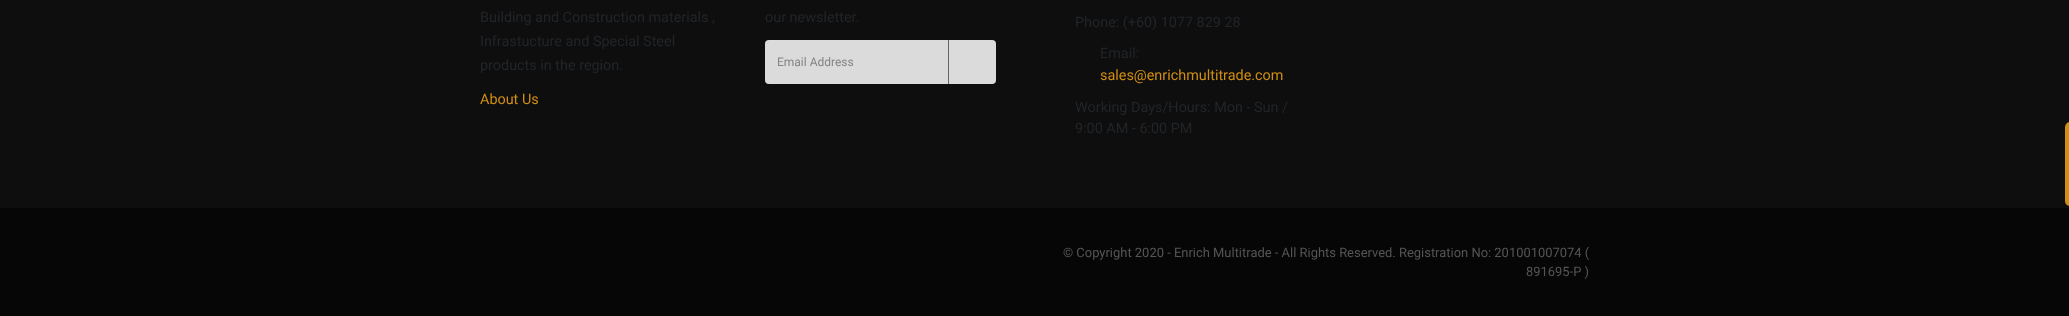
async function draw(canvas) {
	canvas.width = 2069;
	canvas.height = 316;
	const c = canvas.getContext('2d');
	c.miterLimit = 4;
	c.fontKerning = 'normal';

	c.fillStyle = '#0e0e0e';
	c.fillRect(0, 0, 2069, 316);
	c.font = '14.4px Roboto';
	c.fillStyle = '#212529';
	for (const [text, x, y] of [
		['Building and Construction materials ,', 480, 22],
		['Infrastucture and Special Steel', 480, 46],
		['products in the region.', 480, 70],
	]) {
		c.fillText(text, x, y);
	}
	c.fillStyle = '#d28e12';
	c.fillText('About Us', 480, 104);
	c.fillStyle = '#212529';
	c.fillText('our newsletter.', 765, 22);
	c.fillStyle = '#dbdbdb';
	c.beginPath();
	c.roundRect(765, 40, 183, 44, [4, 0, 0, 4]);
	c.fill();
	c.beginPath();
	c.roundRect(948, 40, 48, 44, [0, 4, 4, 0]);
	c.fill();
	c.fillStyle = '#676767';
	c.fillRect(948, 40, 1, 44);
	c.font = '12px Roboto';
	c.fillStyle = '#848484';
	c.fillText('Email Address', 777, 66);
	c.font = '14.4px Roboto';
	c.fillStyle = '#212529';
	c.fillText('Phone: (+60) 1077 829 28', 1075, 27);
	c.fillText('Email:', 1100, 58);
	c.fillStyle = '#d28e12';
	c.fillText('sales@enrichmultitrade.com', 1100, 80);
	c.fillStyle = '#212529';
	c.fillText('Working Days/Hours: Mon - Sun /', 1075, 112);
	c.fillText('9:00 AM - 6:00 PM', 1075, 133);
	c.fillStyle = '#060606';
	c.fillRect(0, 208, 2069, 108);
	c.font = '12.95px Roboto';
	c.fillStyle = '#555';
	c.fillText('© Copyright 2020 - Enrich Multitrade - All Rights Reserved. Registration No: 201001007074 (', 1063, 257);
	c.fillText('891695-P )', 1526, 276);
	c.fillStyle = '#d28e12';
	c.beginPath();
	c.moveTo(2065, 201);
	c.lineTo(2065, 127);
	c.bezierCurveTo(2065, 125, 2067, 122, 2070, 122);
	c.lineTo(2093, 122);
	c.lineTo(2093, 206);
	c.lineTo(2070, 206);
	c.bezierCurveTo(2067, 206, 2065, 204, 2065, 201);
	c.closePath();
	c.fill();
}

draw(document.querySelector('canvas'));
